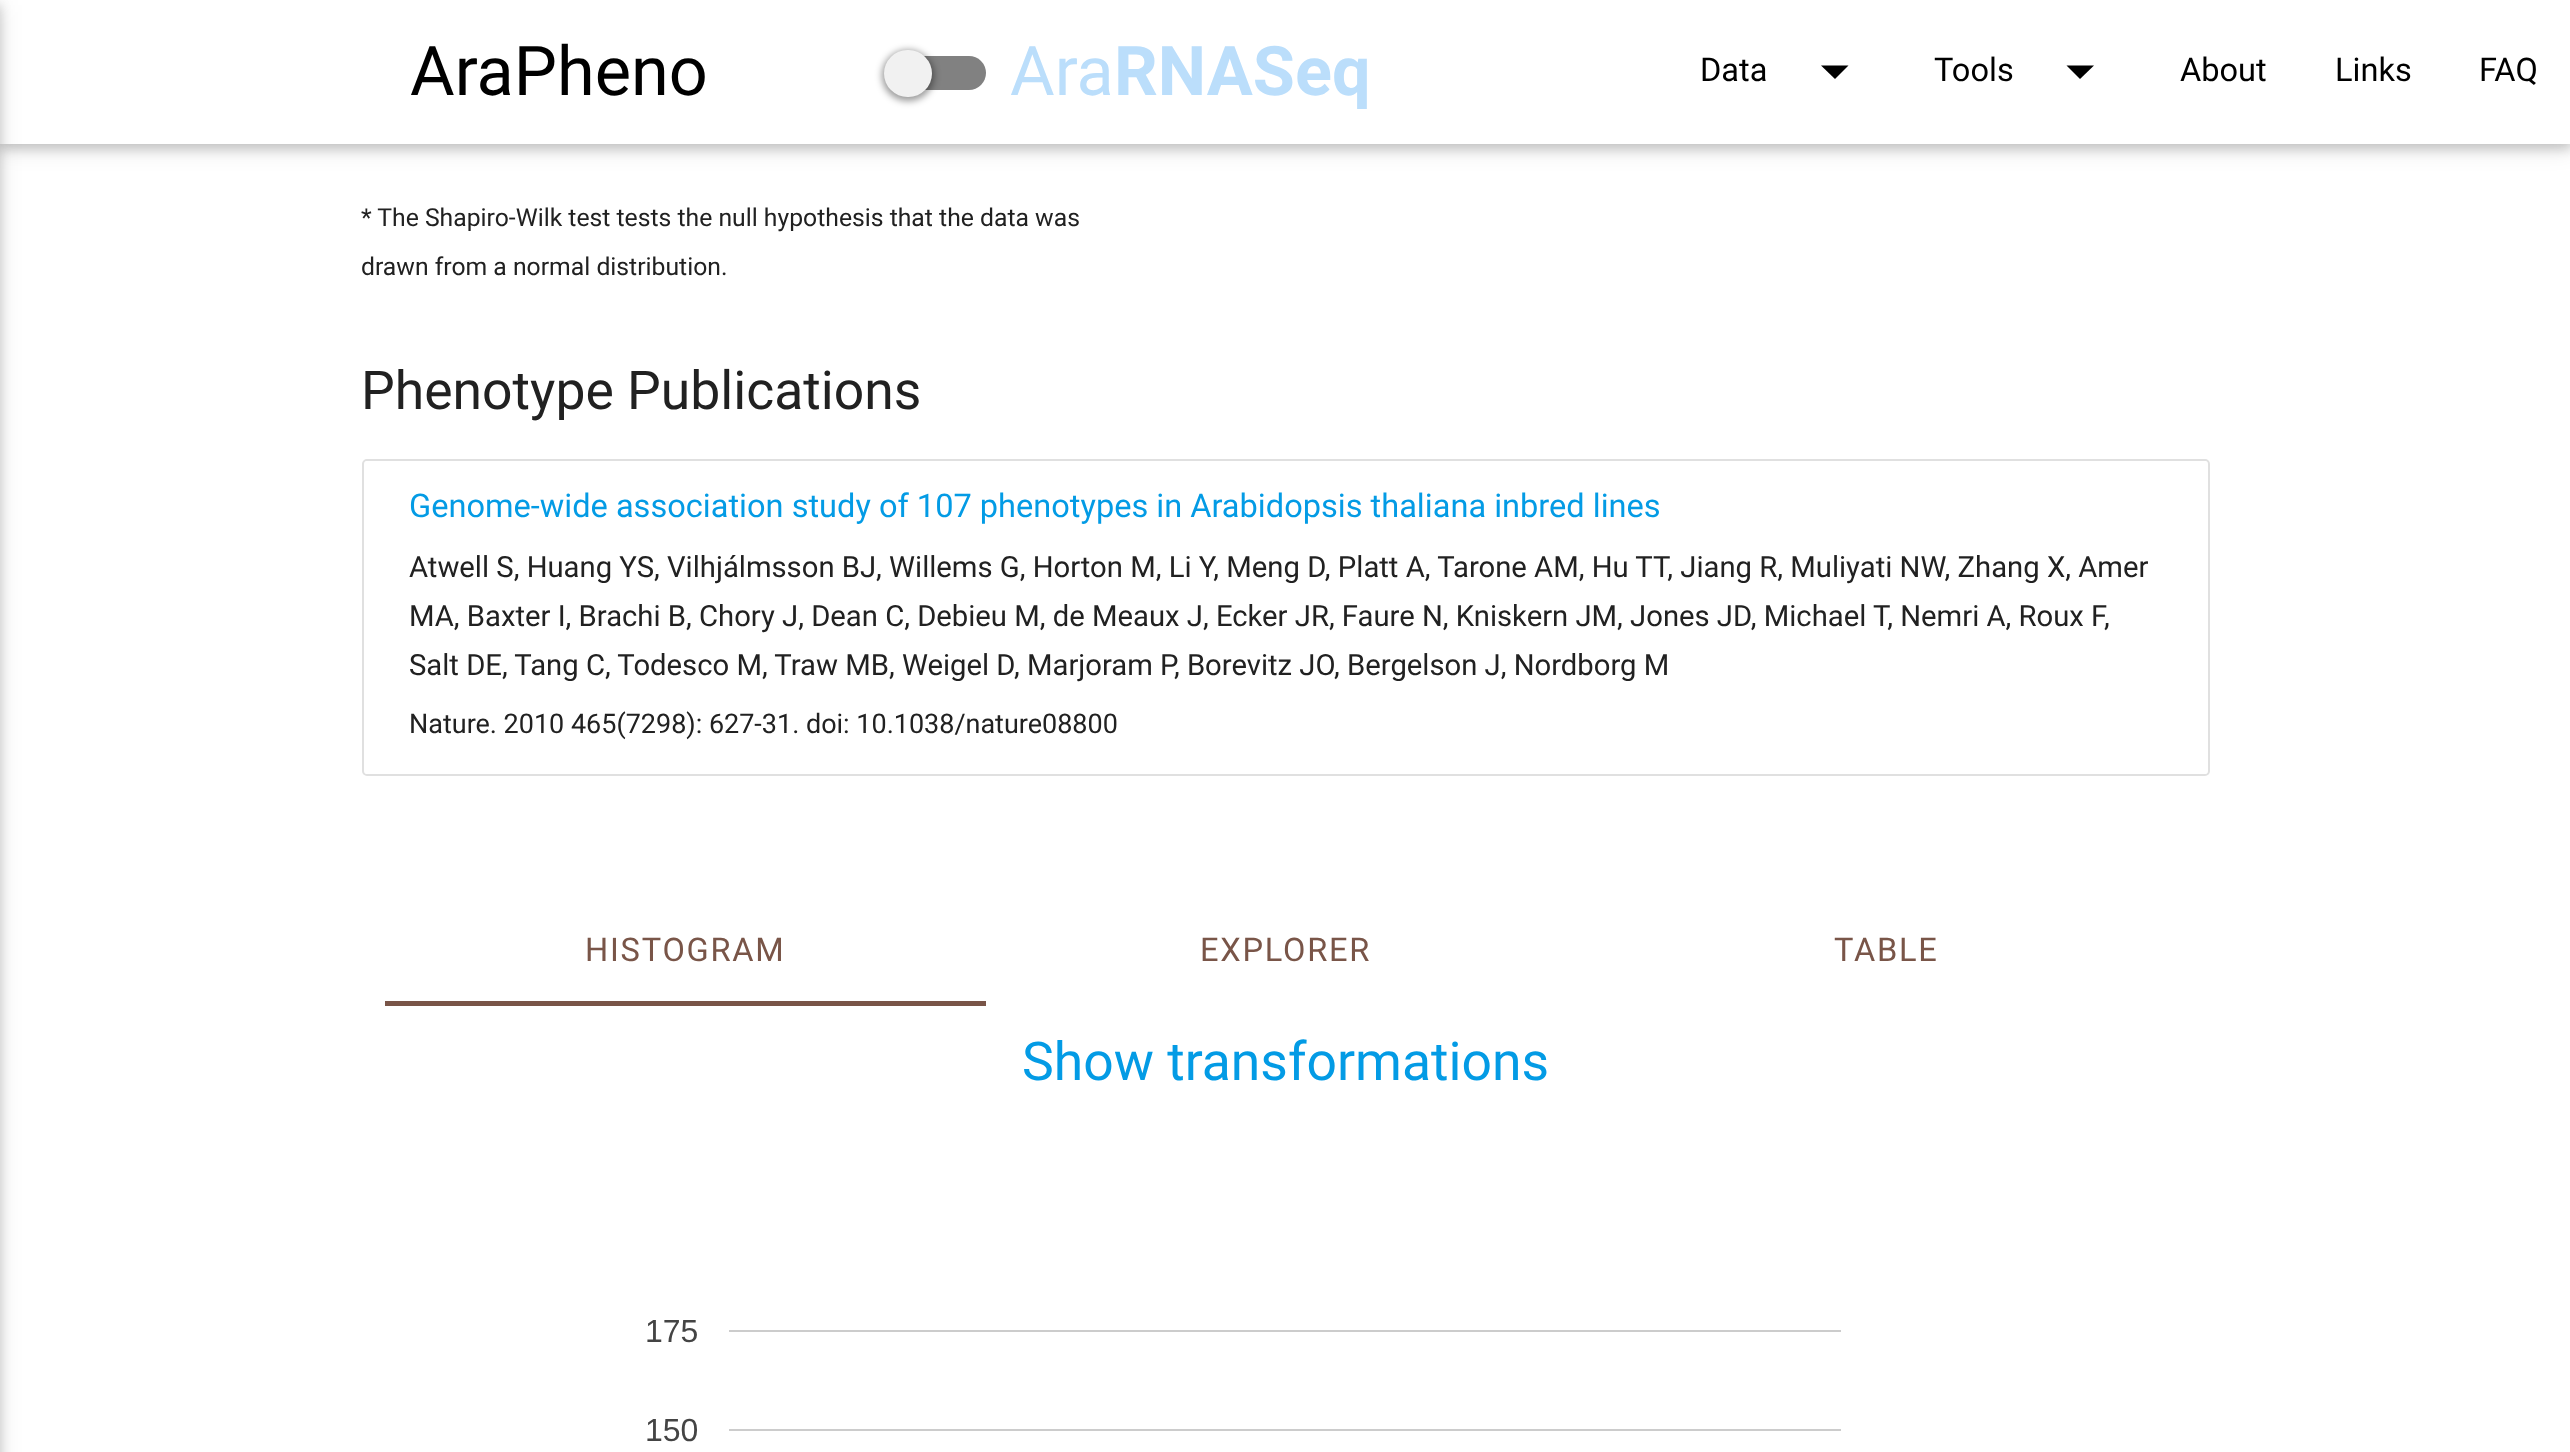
async function draw(canvas) {
	canvas.width = 2570;
	canvas.height = 1452;
	const c = canvas.getContext('2d');
	c.miterLimit = 4;
	c.fontKerning = 'normal';
	async function loadImage(src) {
		const img = new Image();
		img.src = src;
		await img.decode();
		return img;
	}

	c.fillStyle = '#fff';
	c.fillRect(0, 0, 2570, 1452);
	c.fillStyle = '#0000001f';
	c.filter = 'blur(11px)';
	c.beginPath();
	c.rect(0, 5, 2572, 144);
	c.fill();
	c.filter = 'none';
	c.fillStyle = '#00000029';
	c.filter = 'blur(5.5px)';
	c.beginPath();
	c.rect(0, 5, 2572, 144);
	c.fill();
	c.filter = 'none';
	c.fillStyle = '#fff';
	c.fillRect(0, 0, 2570, 144);
	c.fillStyle = '#0000001f';
	c.filter = 'blur(11px)';
	c.beginPath();
	c.rect(-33, 5, 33, 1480);
	c.fill();
	c.filter = 'none';
	c.fillStyle = '#00000029';
	c.filter = 'blur(5.5px)';
	c.beginPath();
	c.rect(-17, 5, 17, 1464);
	c.fill();
	c.filter = 'none';
	c.font = '68.5px Roboto';
	c.fillStyle = '#000';
	c.fillText('AraPheno', 410, 95);
	c.fillStyle = '#818181';
	c.beginPath();
	c.roundRect(896, 56, 90, 34, 17);
	c.fill();
	c.fillStyle = '#00000066';
	c.filter = 'blur(3.5px)';
	c.beginPath();
	c.roundRect(882, 50, 52, 51, 25.5);
	c.fill();
	c.filter = 'none';
	c.fillStyle = '#f1f1f1';
	c.beginPath();
	c.roundRect(884, 50, 48, 47, 23.5);
	c.fill();
	c.fillStyle = '#bbdefb';
	c.fillText('Ara', 1010, 95);
	c.font = 'bold 68.5px Roboto';
	c.fillText('RNASeq', 1114, 95);
	c.font = '32.6px Roboto';
	c.fillStyle = '#000';
	c.fillText('Data', 1700, 81);
	c.beginPath();
	c.moveTo(1821, 65.5);
	c.lineTo(1848.5, 65.5);
	c.lineTo(1835, 79);
	c.closePath();
	c.fill();
	c.fillText('Tools', 1934, 81);
	c.beginPath();
	c.moveTo(2066.5, 65.5);
	c.lineTo(2094, 65.5);
	c.lineTo(2080, 79);
	c.closePath();
	c.fill();
	for (const [text, x, y] of [
		['About', 2180, 81],
		['Links', 2335, 81],
		['FAQ', 2479, 81],
	]) {
		c.fillText(text, x, y);
	}
	c.font = '24.75px Roboto';
	c.fillStyle = '#212121';
	c.fillText('* The Shapiro-Wilk test tests the null hypothesis that the data was', 361, 226);
	c.fillText('drawn from a normal distribution.', 361, 275);
	c.font = '53.5px Roboto';
	c.fillText('Phenotype Publications', 361, 409);
	c.beginPath();
	c.roundRect(363, 460, 1846, 315, 4);
	c.strokeStyle = '#e0e0e0';
	c.lineWidth = 2;
	c.stroke();
	c.fillStyle = '#fff';
	c.beginPath();
	c.roundRect(365, 461, 1842, 313, 2);
	c.fill();
	c.font = '32.6px Roboto';
	c.fillStyle = '#039be5';
	c.fillText('Genome-wide association study of 107 phenotypes in Arabidopsis thaliana inbred lines', 409, 517);
	c.font = '29.25px Roboto';
	c.fillStyle = '#212121';
	for (const [text, x, y] of [
		['Atwell S, Huang YS, Vilhjálmsson BJ, Willems G, Horton M, Li Y, Meng D, Platt A, Tarone AM, Hu TT, Jiang R, Muliyati NW, Zhang X, Amer', 409, 577],
		['MA, Baxter I, Brachi B, Chory J, Dean C, Debieu M, de Meaux J, Ecker JR, Faure N, Kniskern JM, Jones JD, Michael T, Nemri A, Roux F,', 409, 626],
		['Salt DE, Tang C, Todesco M, Traw MB, Weigel D, Marjoram P, Borevitz JO, Bergelson J, Nordborg M', 409, 675],
	]) {
		c.fillText(text, x, y);
	}
	c.font = '27px Roboto';
	c.fillText('Nature. 2010 465(7298): 627-31. doi: 10.1038/nature08800', 409, 733);
	c.letterSpacing = '1.75px';
	c.font = '32.6px Roboto';
	c.fillStyle = '#795548';
	for (const [text, x, y] of [
		['HISTOGRAM', 585, 961],
		['EXPLORER', 1200, 961],
		['TABLE', 1834, 961],
	]) {
		c.fillText(text, x, y);
	}
	c.fillRect(385, 1001, 601, 5);
	c.letterSpacing = '0px';
	c.font = '53.5px Roboto';
	c.fillStyle = '#039be5';
	c.fillText('Show transformations', 1022, 1080);
	c.font = '32px Liberation Sans';
	c.fillStyle = '#444';
	c.fillText('175', 645, 1342);
	c.drawImage(await loadImage('img1.png'), 729, 1330, 1112, 101);
	c.fillText('150', 645, 1441);
}

draw(document.querySelector('canvas'));
